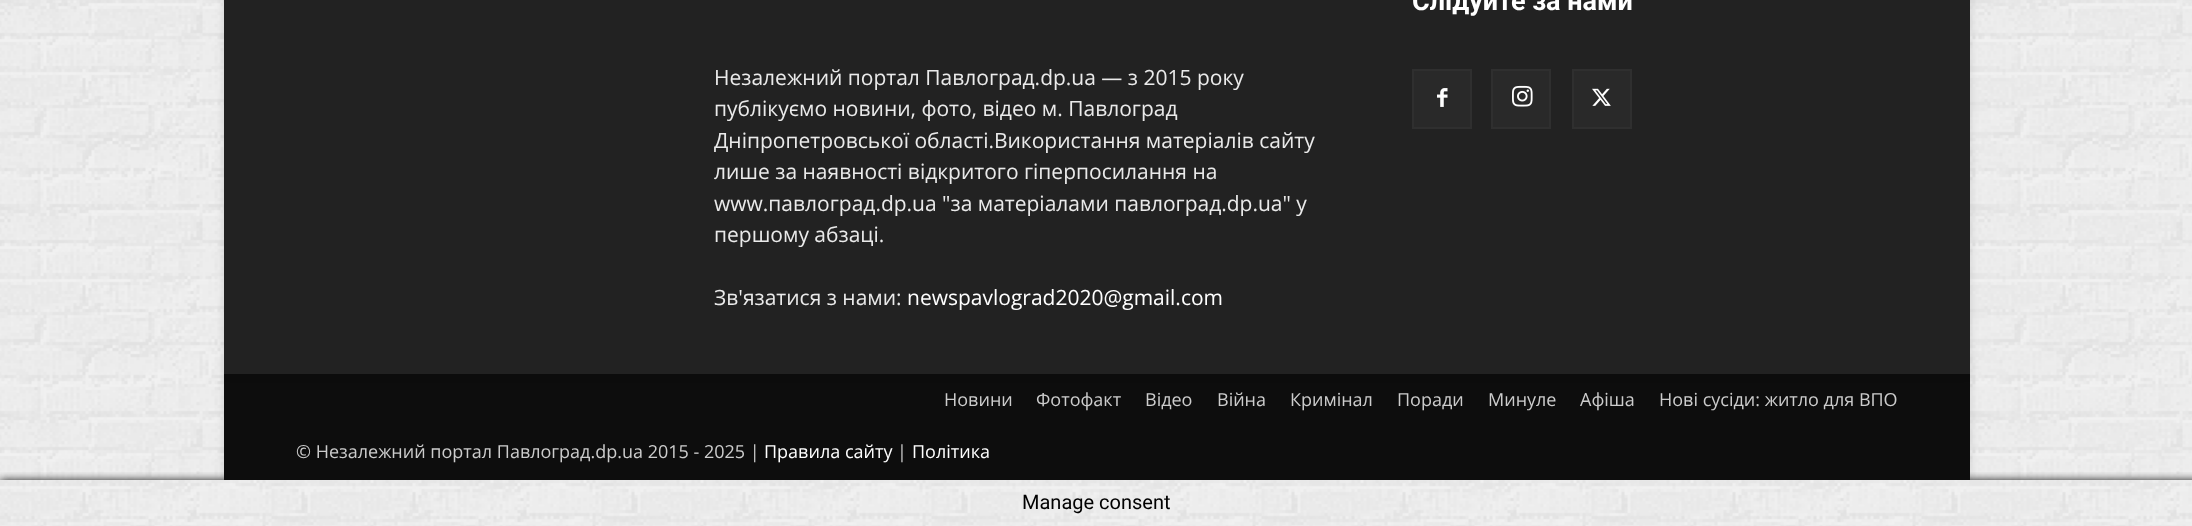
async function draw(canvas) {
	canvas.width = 2192;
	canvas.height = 526;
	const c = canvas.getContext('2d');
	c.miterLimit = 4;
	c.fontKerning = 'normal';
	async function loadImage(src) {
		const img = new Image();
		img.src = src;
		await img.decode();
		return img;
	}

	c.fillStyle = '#fff';
	c.fillRect(0, 0, 2192, 526);
	c.drawImage(await loadImage('img1.png'), 0, 0, 2192, 526);
	c.save();
	c.beginPath();
	c.rect(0, 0, 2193, 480);
	c.clip();
	c.fillStyle = '#0000001f';
	c.filter = 'blur(4px)';
	c.beginPath();
	c.rect(224, 374, 1746, 106);
	c.fill();
	c.filter = 'none';
	c.restore();
	c.save();
	c.beginPath();
	c.rect(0, 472, 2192, 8);
	c.clip();
	c.fillStyle = '#161616';
	c.filter = 'blur(4px)';
	c.beginPath();
	c.rect(0, 480, 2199, 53);
	c.fill();
	c.filter = 'none';
	c.restore();
	c.fillStyle = '#0d0d0d';
	c.fillRect(224, 374, 1746, 106);
	c.fillStyle = '#0000001f';
	c.filter = 'blur(4px)';
	c.beginPath();
	c.rect(224, -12, 1746, 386);
	c.fill();
	c.filter = 'none';
	c.fillStyle = '#222';
	c.fillRect(224, 0, 1746, 374);
	c.font = 'bold 27px Roboto';
	c.fillStyle = '#fff';
	c.fillText('Слідуйте за нами', 1412, 10);
	c.fillStyle = '#292929';
	c.fillRect(1414, 71, 56, 56);
	c.drawImage(await loadImage('img2.png'), 1437, 88, 11, 19);
	c.strokeStyle = '#2f2f2f';
	c.lineWidth = 2;
	c.strokeRect(1413, 70, 58, 58);
	c.fillRect(1493, 71, 56, 56);
	c.drawImage(await loadImage('img3.png'), 1512, 85, 21, 22);
	c.strokeRect(1492, 70, 58, 58);
	c.fillRect(1574, 71, 56, 56);
	c.drawImage(await loadImage('img4.png'), 1592, 88, 19, 18);
	c.strokeRect(1573, 70, 58, 58);
	c.font = '21px Open Sans';
	c.fillStyle = '#eaeaea';
	for (const [text, x, y] of [
		['Незалежний портал Павлоград.dp.ua — з 2015 року', 714, 85],
		['публікуємо новини, фото, відео м. Павлоград', 714, 116],
		['Дніпропетровської області.Використання матеріалів сайту', 714, 148],
		['лише за наявності відкритого гіперпосилання на', 714, 179],
		['www.павлоград.dp.ua "за матеріалами павлоград.dp.ua" у', 714, 211],
		['першому абзаці.', 714, 242],
		['Зв\'язатися з нами:', 714, 305],
	]) {
		c.fillText(text, x, y);
	}
	c.fillStyle = '#fff';
	c.fillText('newspavlograd2020@gmail.com', 907, 305);
	c.font = '18px Open Sans';
	c.fillStyle = '#ccc';
	for (const [text, x, y] of [
		['Новини', 944, 406],
		['Фотофакт', 1036, 406],
		['Відео', 1145, 406],
		['Війна', 1217, 406],
		['Кримінал', 1290, 406],
		['Поради', 1397, 406],
		['Минуле', 1488, 406],
		['Афіша', 1580, 406],
		['Нові сусіди: житло для ВПО', 1659, 406],
		['© Незалежний портал Павлоград.dp.ua 2015 - 2025 |', 296, 458],
	]) {
		c.fillText(text, x, y);
	}
	c.fillStyle = '#fff';
	c.fillText('Правила сайту', 764, 458);
	c.fillStyle = '#ccc';
	c.fillText('|', 897, 458);
	c.fillStyle = '#fff';
	c.fillText('Політика', 912, 458);
	c.font = '20px Roboto';
	c.fillStyle = '#000';
	c.fillText('Manage consent', 1022, 509);
}

draw(document.querySelector('canvas'));
